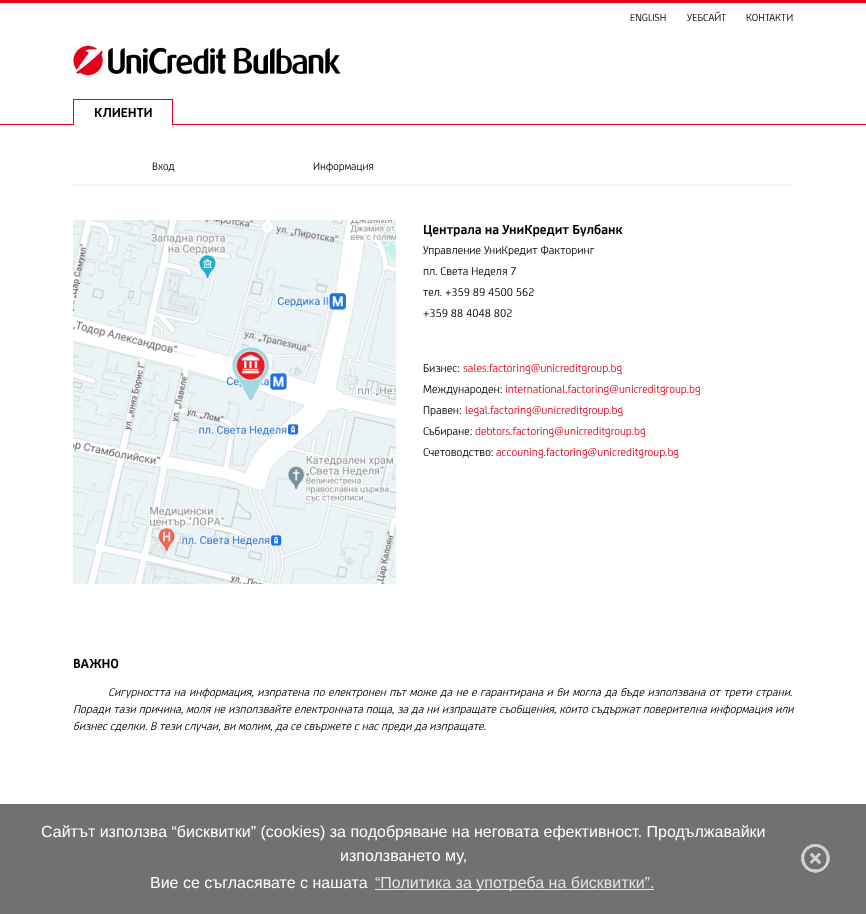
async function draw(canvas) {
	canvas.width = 866;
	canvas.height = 914;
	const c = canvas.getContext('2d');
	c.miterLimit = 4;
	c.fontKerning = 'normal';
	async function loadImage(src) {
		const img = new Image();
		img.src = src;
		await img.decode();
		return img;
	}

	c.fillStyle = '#fff';
	c.fillRect(0, 0, 866, 914);
	c.fillStyle = '#e2001a';
	c.fillRect(0, 0, 866, 3);
	c.font = '11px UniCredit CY';
	c.fillStyle = '#000';
	for (const [text, x, y] of [
		['ENGLISH', 630, 21],
		['УЕБСАЙТ', 687, 21],
		['КОНТАКТИ', 746, 21],
	]) {
		c.fillText(text, x, y);
	}
	c.drawImage(await loadImage('img1.png'), 73, 45, 268, 31);
	for (const [x, y, w, h, color] of [
		[0, 124, 866, 1, '#e2001a'],
		[74, 124, 98, 1, '#fff'],
		[73, 99, 100, 1, '#e2001a'],
		[172, 99, 1, 26, '#e2001a'],
		[73, 99, 1, 26, '#e2001a'],
	]) {
		c.fillStyle = color;
		c.fillRect(x, y, w, h);
	}
	c.font = 'bold 14px UniCredit CY';
	c.fillStyle = '#000';
	c.fillText('КЛИЕНТИ', 94, 117);
	c.fillStyle = '#f2f2f2';
	c.fillRect(73, 184, 720, 2);
	c.font = '11.5px UniCredit CY';
	c.fillStyle = '#000';
	c.fillText('Вход', 152, 170);
	c.fillText('Информация', 313, 170);
	c.drawImage(await loadImage('img2.png'), 73, 220, 323, 364);
	c.font = 'bold 14px UniCredit CY';
	c.fillText('Централа на УниКредит Булбанк', 423, 234);
	c.font = '12px UniCredit CY';
	for (const [text, x, y] of [
		['Управление УниКредит Факторинг', 423, 254],
		['пл. Света Неделя 7', 423, 275],
		['тел. +359 89 4500 562', 423, 296],
		['+359 88 4048 802', 423, 317],
		['Бизнес:', 423, 372],
	]) {
		c.fillText(text, x, y);
	}
	c.fillStyle = '#e2001a';
	c.fillText('sales.factoring@unicreditgroup.bg', 463, 372);
	c.fillStyle = '#000';
	c.fillText('Международен:', 423, 393);
	c.fillStyle = '#e2001a';
	c.fillText('international.factoring@unicreditgroup.bg', 505, 393);
	c.fillStyle = '#000';
	c.fillText('Правен:', 423, 414);
	c.fillStyle = '#e2001a';
	c.fillText('legal.factoring@unicreditgroup.bg', 465, 414);
	c.fillStyle = '#000';
	c.fillText('Събиране:', 423, 435);
	c.fillStyle = '#e2001a';
	c.fillText('debtors.factoring@unicreditgroup.bg', 475, 435);
	c.fillStyle = '#000';
	c.fillText('Счетоводство:', 423, 456);
	c.fillStyle = '#e2001a';
	c.fillText('accouning.factoring@unicreditgroup.bg', 496, 456);
	c.font = 'bold 14px UniCredit CY';
	c.fillStyle = '#000';
	c.fillText('ВАЖНО', 73, 668);
	c.wordSpacing = '0.8px';
	c.font = 'italic 12px UniCredit CY';
	c.fillText('Сигурността на информация, изпратена по eлектронен път може да не е гарантирана и би могла да бъде използвана от трети страни.', 108, 696);
	c.wordSpacing = '0.2px';
	c.fillText('Поради тази причина, моля не използвайте електронната поща, за да ни изпращате съобщения, които съдържат поверителна информация или', 73, 713);
	c.wordSpacing = '0px';
	c.fillText('бизнес сделки. В тези случаи, ви молим, да се свържете с нас преди да изпращате.', 73, 730);
	c.fillStyle = '#717171';
	c.fillRect(0, 804, 866, 110);
	c.font = '16px Liberation Sans';
	c.fillStyle = '#fff';
	for (const [text, x, y] of [
		['Сайтът използва “бисквитки” (cookies) за подобряване на неговата ефективност. Продължавайки', 41, 837],
		['използването му,', 340, 861],
		['Вие се съгласявате с нашата', 150, 888],
	]) {
		c.fillText(text, x, y);
	}
	c.fillStyle = '#e3e3e3';
	c.fillRect(375, 889, 279, 1);
	c.fillText('“Политика за употреба на бисквитки”.', 375, 888);
	c.drawImage(await loadImage('img3.png'), 801, 844, 29, 29);
}

draw(document.querySelector('canvas'));
